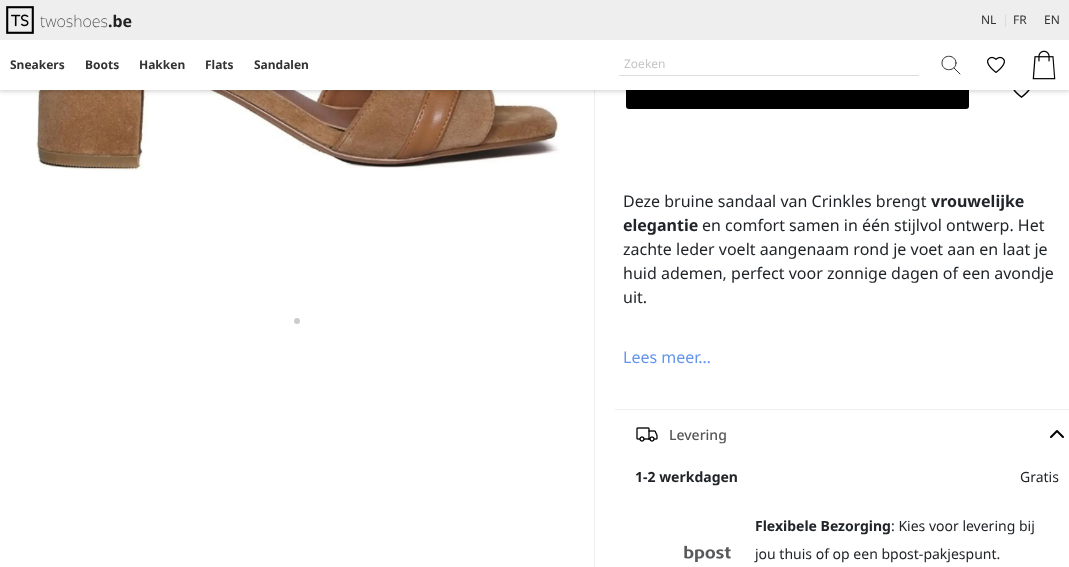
async function draw(canvas) {
	canvas.width = 1069;
	canvas.height = 567;
	const c = canvas.getContext('2d');
	c.miterLimit = 4;
	c.fontKerning = 'normal';
	async function loadImage(src) {
		const img = new Image();
		img.src = src;
		await img.decode();
		return img;
	}

	c.fillStyle = '#fff';
	c.fillRect(0, 0, 1069, 567);
	c.drawImage(await loadImage('img4.png'), 35, 90, 525, 81);
	c.fillStyle = '#eee';
	c.fillRect(594, 90, 1, 477);
	c.fillStyle = '#000';
	c.beginPath();
	c.roundRect(626, 69, 343, 40, 3);
	c.fill();
	c.drawImage(await loadImage('img5.png'), 1013, 90, 17, 8);
	c.fillStyle = '#00000033';
	c.filter = 'blur(2.5px)';
	c.beginPath();
	c.rect(-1, -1, 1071, 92);
	c.fill();
	c.filter = 'none';
	c.fillStyle = '#eee';
	c.fillRect(0, 0, 1069, 40);
	c.drawImage(await loadImage('img1.png'), 6, 6, 28, 28);
	c.font = '200 16px Noto Sans';
	c.fillStyle = '#444';
	c.fillText('twoshoes', 40, 27);
	c.font = 'bold 16px Noto Sans';
	c.fillStyle = '#222';
	c.fillText('.be', 108, 27);
	c.font = '12px Noto Sans';
	c.fillStyle = '#333';
	c.fillText('NL', 981, 24);
	c.font = '200 12px Noto Sans';
	c.fillStyle = '#c5c5c5';
	c.fillText('|', 1002, 24);
	c.font = '12px Noto Sans';
	c.fillStyle = '#333';
	c.fillText('FR', 1013, 24);
	c.fillText('EN', 1044, 24);
	c.fillStyle = '#fff';
	c.fillRect(0, 40, 1069, 50);
	c.font = 'bold 12px Noto Sans';
	c.fillStyle = '#333';
	for (const [text, x, y] of [
		['Sneakers', 10, 69],
		['Boots', 85, 69],
		['Hakken', 139, 69],
		['Flats', 205, 69],
		['Sandalen', 254, 69],
	]) {
		c.fillText(text, x, y);
	}
	c.fillStyle = '#ddd';
	c.fillRect(619, 75, 300, 1);
	c.font = '12px Noto Sans';
	c.fillStyle = '#c5c5c5';
	c.fillText('Zoeken', 624, 68);
	c.beginPath();
	c.moveTo(960, 74);
	c.lineTo(954, 68);
	c.moveTo(956, 63);
	c.bezierCurveTo(956, 72, 942, 72, 942, 63);
	c.bezierCurveTo(942, 54, 956, 54, 956, 63);
	c.closePath();
	c.strokeStyle = '#333';
	c.lineCap = 'round';
	c.lineJoin = 'round';
	c.stroke();
	c.drawImage(await loadImage('img2.png'), 987, 56, 18, 17);
	c.drawImage(await loadImage('img3.png'), 1032, 50, 24, 30);
	c.fillStyle = '#ccc';
	c.beginPath();
	c.arc(297, 321, 3, 0, 2 * Math.PI);
	c.fill();
	c.font = '16px Noto Sans';
	c.fillStyle = '#212529';
	c.fillText('Deze bruine sandaal van Crinkles brengt', 623, 207);
	c.font = 'bold 16px Noto Sans';
	c.fillText('vrouwelijke', 931, 207);
	c.fillText('elegantie', 623, 231);
	c.font = '16px Noto Sans';
	for (const [text, x, y] of [
		['en comfort samen in één stijlvol ontwerp. Het', 702, 231],
		['zachte leder voelt aangenaam rond je voet aan en laat je', 623, 255],
		['huid ademen, perfect voor zonnige dagen of een avondje', 623, 279],
		['uit.', 623, 303],
	]) {
		c.fillText(text, x, y);
	}
	c.fillStyle = '#6495ed';
	c.fillText('Lees meer…', 623, 363);
	c.fillStyle = '#eee';
	c.fillRect(615, 409, 454, 1);
	c.drawImage(await loadImage('img6.png'), 636, 427, 22, 15);
	c.font = '500 14px Noto Sans';
	c.fillStyle = '#555';
	c.fillText('Levering', 669, 440);
	c.beginPath();
	c.moveTo(1063, 437);
	c.lineTo(1057, 431);
	c.lineTo(1051, 437);
	c.strokeStyle = '#000';
	c.lineWidth = 2;
	c.stroke();
	c.font = 'bold 14px Noto Sans';
	c.fillStyle = '#212529';
	c.fillText('1-2 werkdagen', 635, 482);
	c.font = '14px Noto Sans';
	c.fillText('Gratis', 1020, 482);
	c.drawImage(await loadImage('img7.png'), 684, 545, 47, 17);
	c.font = 'bold 14px Noto Sans';
	c.fillText('Flexibele Bezorging', 755, 531);
	c.font = '14px Noto Sans';
	c.fillText(': Kies voor levering bij', 891, 531);
	c.fillText('jou thuis of op een bpost-pakjespunt.', 755, 559);
}

draw(document.querySelector('canvas'));
